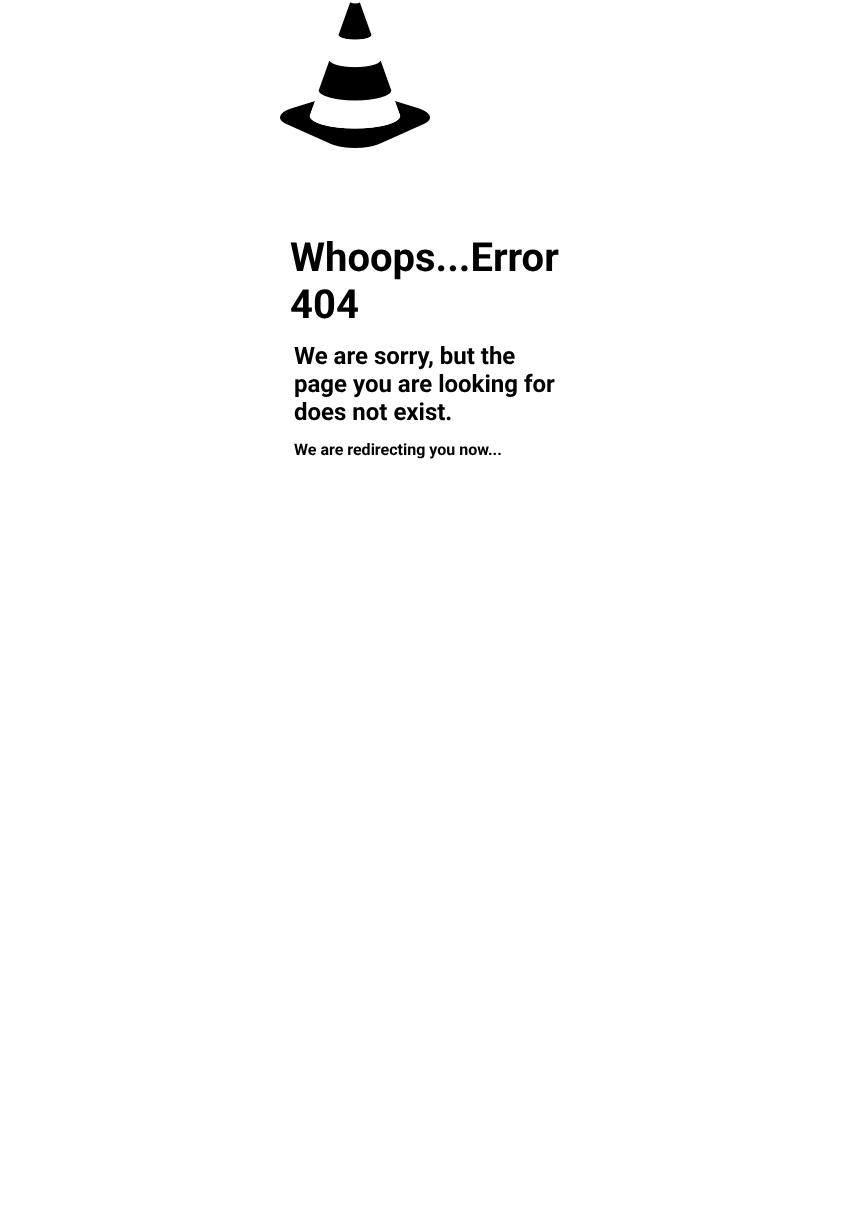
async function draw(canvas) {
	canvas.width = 860;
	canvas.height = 1215;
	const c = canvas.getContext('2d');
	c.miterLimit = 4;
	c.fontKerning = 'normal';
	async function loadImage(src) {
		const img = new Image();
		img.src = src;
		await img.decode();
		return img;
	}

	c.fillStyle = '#fff';
	c.fillRect(0, 0, 860, 1215);
	c.drawImage(await loadImage('img1.png'), 280, 2, 150, 146);
	c.font = 'bold 40px Roboto';
	c.fillStyle = '#000';
	c.fillText('Whoops...Error', 290, 271);
	c.fillText('404', 290, 318);
	c.font = 'bold 24px Roboto';
	for (const [text, x, y] of [
		['We are sorry, but the', 294, 364],
		['page you are looking for', 294, 392],
		['does not exist.', 294, 420],
	]) {
		c.fillText(text, x, y);
	}
	c.font = 'bold 16px Roboto';
	c.fillText('We are redirecting you now...', 294, 455);
}

draw(document.querySelector('canvas'));
